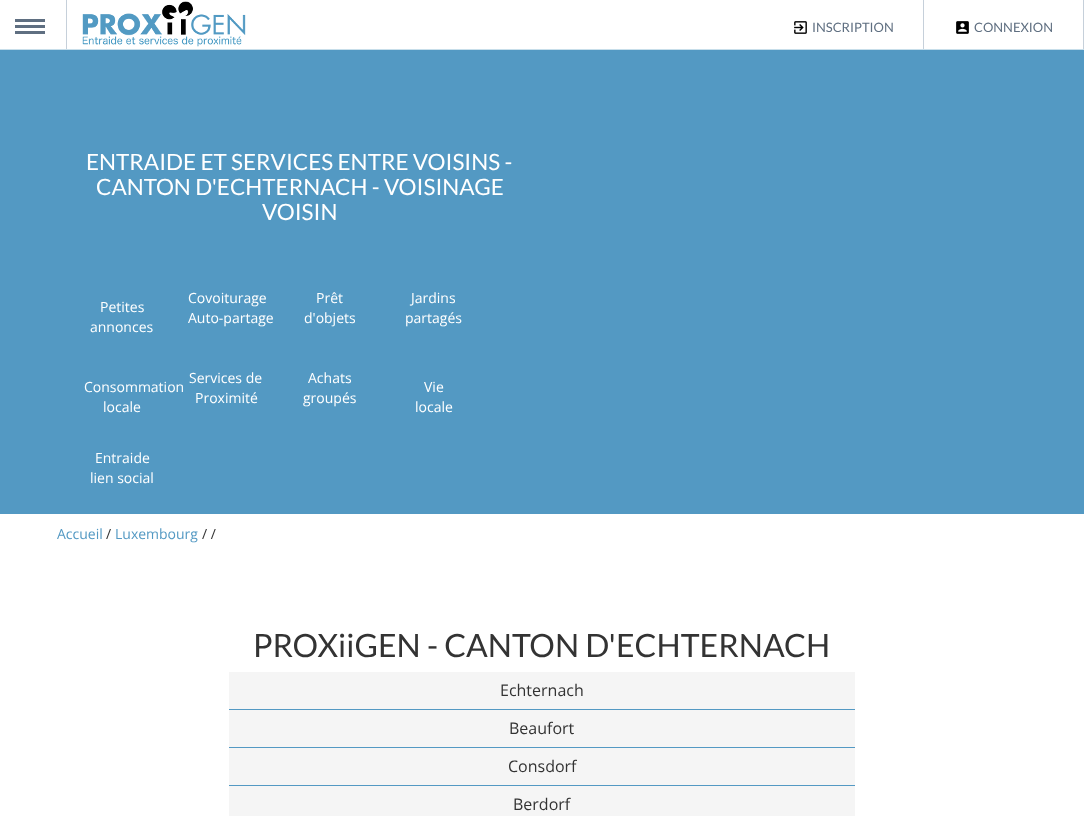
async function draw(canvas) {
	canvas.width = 1084;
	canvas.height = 816;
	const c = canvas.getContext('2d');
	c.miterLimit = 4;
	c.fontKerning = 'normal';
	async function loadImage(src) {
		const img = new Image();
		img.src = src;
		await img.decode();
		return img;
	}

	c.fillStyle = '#fff';
	c.fillRect(0, 0, 1084, 816);
	for (const [x, y, w, h, color] of [
		[0, 49, 1084, 1, '#c7deea'],
		[66, 0, 1, 49, '#c6d0da'],
		[15, 19, 30, 3, '#5f6f81'],
		[15, 25, 30, 3, '#5f6f81'],
		[15, 31, 30, 3, '#5f6f81'],
	]) {
		c.fillStyle = color;
		c.fillRect(x, y, w, h);
	}
	c.drawImage(await loadImage('img1.png'), 82, 1, 164, 46);
	c.fillStyle = '#c6d0da';
	c.fillRect(923, 0, 1, 49);
	c.drawImage(await loadImage('img2.png'), 794, 21, 13, 13);
	c.font = '13px Lato';
	c.fillStyle = '#5f6f81';
	c.fillText('INSCRIPTION', 812, 32);
	c.fillStyle = '#c6d0da';
	c.fillRect(1083, 0, 1, 49);
	c.drawImage(await loadImage('img3.png'), 956, 21, 13, 13);
	c.fillStyle = '#5f6f81';
	c.fillText('CONNEXION', 974, 32);
	c.fillStyle = '#5399c3';
	c.fillRect(0, 50, 1084, 464);
	c.font = '22.5px Lato';
	c.fillStyle = '#fff';
	for (const [text, x, y] of [
		['ENTRAIDE ET SERVICES ENTRE VOISINS -', 86, 170],
		['CANTON D\'ECHTERNACH - VOISINAGE', 96, 195],
		['VOISIN', 262, 220],
	]) {
		c.fillText(text, x, y);
	}
	c.font = '14px Open Sans';
	for (const [text, x, y] of [
		['Petites', 100, 312],
		['annonces', 90, 332],
		['Covoiturage', 188, 303],
		['Auto-partage', 188, 323],
		['Prêt', 316, 303],
		['d\'objets', 304, 323],
		['Jardins', 411, 303],
		['partagés', 405, 323],
		['Consommation', 84, 392],
		['locale', 103, 412],
		['Services de', 189, 383],
		['Proximité', 195, 403],
		['Achats', 308, 383],
		['groupés', 303, 403],
		['Vie', 424, 392],
		['locale', 415, 412],
		['Entraide', 95, 463],
		['lien social', 90, 483],
	]) {
		c.fillText(text, x, y);
	}
	c.fillStyle = '#5399c3';
	c.fillText('Accueil', 57, 539);
	c.fillStyle = '#333';
	c.fillText('/', 106, 539);
	c.fillStyle = '#5399c3';
	c.fillText('Luxembourg', 115, 539);
	c.fillStyle = '#333';
	c.fillText('/ /', 202, 539);
	c.font = '32px Lato';
	c.fillText('PROXiiGEN - CANTON D\'ECHTERNACH', 253, 657);
	c.fillStyle = '#f5f5f5';
	c.fillRect(229, 672, 626, 37);
	c.fillStyle = '#5399c3';
	c.fillRect(229, 709, 626, 1);
	c.font = '16px Open Sans';
	c.fillStyle = '#333';
	c.fillText('Echternach', 500, 696);
	c.fillStyle = '#f5f5f5';
	c.fillRect(229, 710, 626, 37);
	c.fillStyle = '#5399c3';
	c.fillRect(229, 747, 626, 1);
	c.fillStyle = '#333';
	c.fillText('Beaufort', 509, 734);
	c.fillStyle = '#f5f5f5';
	c.fillRect(229, 748, 626, 37);
	c.fillStyle = '#5399c3';
	c.fillRect(229, 785, 626, 1);
	c.fillStyle = '#333';
	c.fillText('Consdorf', 508, 772);
	c.fillStyle = '#f5f5f5';
	c.fillRect(229, 786, 626, 30);
	c.fillStyle = '#333';
	c.fillText('Berdorf', 513, 810);
}

draw(document.querySelector('canvas'));
